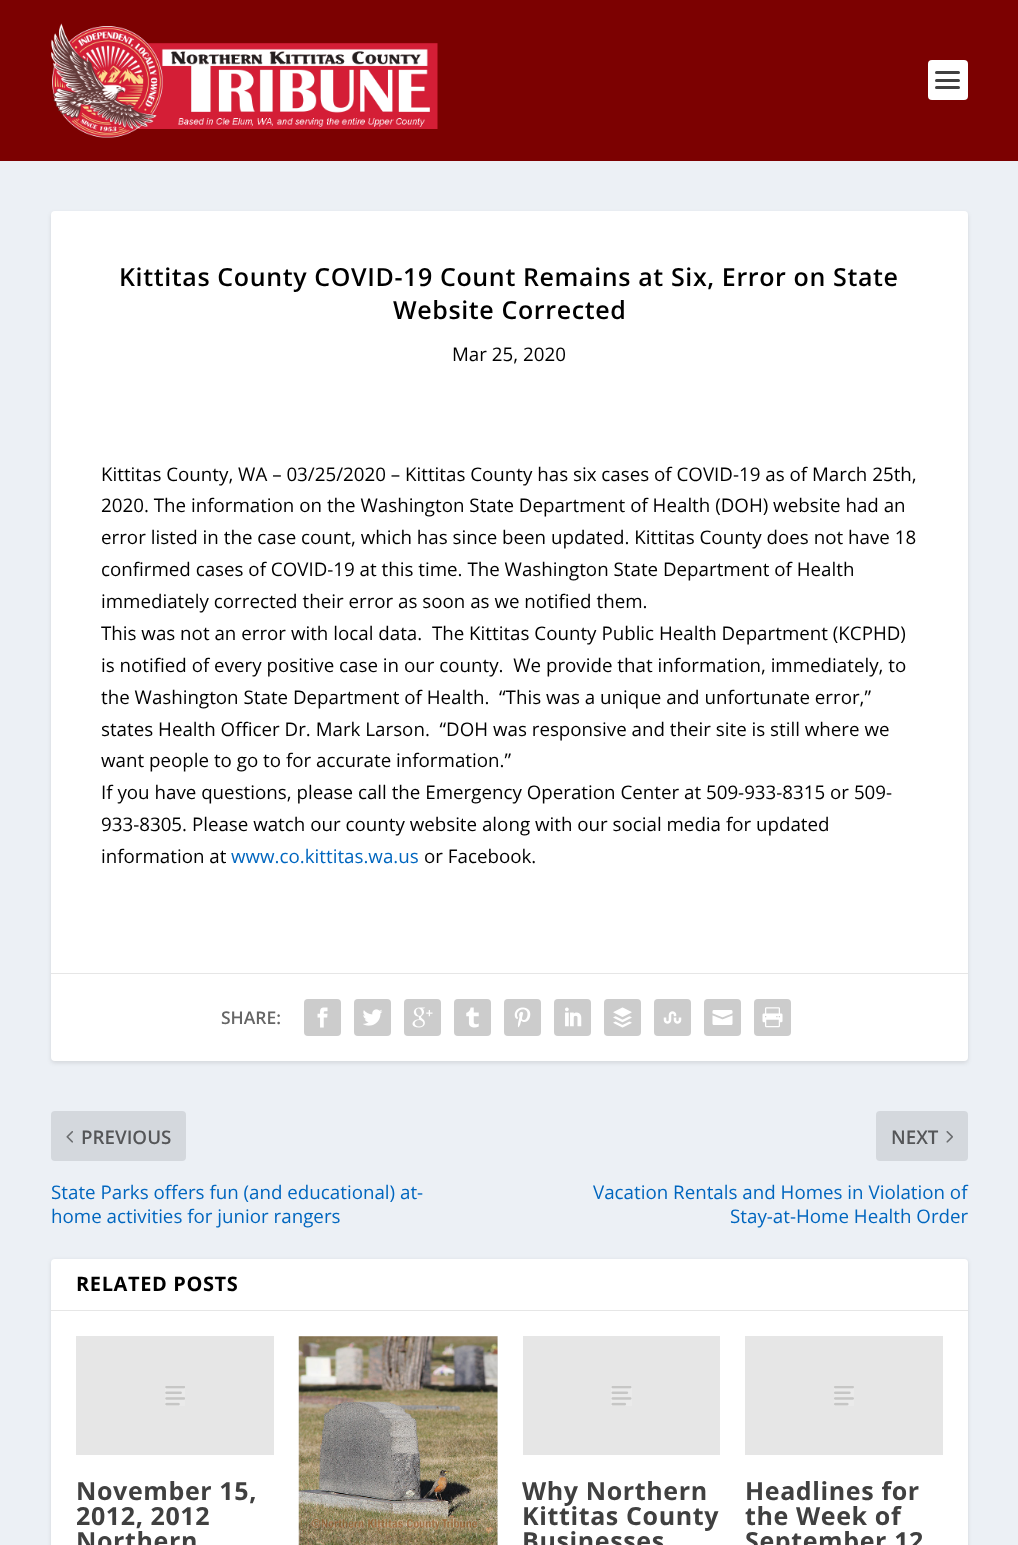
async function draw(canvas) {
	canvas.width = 1018;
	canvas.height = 1545;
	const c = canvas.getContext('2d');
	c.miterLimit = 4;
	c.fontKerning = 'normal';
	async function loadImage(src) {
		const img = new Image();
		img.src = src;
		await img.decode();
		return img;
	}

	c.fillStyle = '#ecf0f5';
	c.fillRect(0, 0, 1018, 1545);
	c.fillStyle = '#7c0101';
	c.fillRect(0, 0, 1018, 161);
	c.drawImage(await loadImage('img1.png'), 51, 23, 387, 115);
	c.fillStyle = '#fff';
	c.beginPath();
	c.roundRect(928, 60, 40, 40, 4);
	c.fill();
	c.fillStyle = '#404040';
	c.beginPath();
	c.roundRect(935, 71, 25, 3, 1.5);
	c.fill();
	c.beginPath();
	c.roundRect(935, 79, 25, 3, 1.5);
	c.fill();
	c.beginPath();
	c.roundRect(935, 86, 25, 3, 1.5);
	c.fill();
	c.fillStyle = '#0000001a';
	c.filter = 'blur(2px)';
	c.beginPath();
	c.roundRect(51, 213, 917, 850, 4);
	c.fill();
	c.filter = 'none';
	c.fillStyle = '#fff';
	c.beginPath();
	c.roundRect(51, 211, 917, 850, 4);
	c.fill();
	c.letterSpacing = '0.62px';
	c.font = '600 25px Open Sans';
	c.fillStyle = '#000';
	c.fillText('Kittitas County COVID-19 Count Remains at Six, Error on State', 119, 286);
	c.fillText('Website Corrected', 393, 319);
	c.letterSpacing = '0px';
	c.font = '18.75px Open Sans';
	for (const [text, x, y] of [
		['Mar 25, 2020', 452, 361],
		['Kittitas County, WA – 03/25/2020 – Kittitas County has six cases of COVID-19 as of March 25th,', 101, 481],
		['2020. The information on the Washington State Department of Health (DOH) website had an', 101, 512],
		['error listed in the case count, which has since been updated. Kittitas County does not have 18', 101, 544],
		['confirmed cases of COVID-19 at this time. The Washington State Department of Health', 101, 576],
		['immediately corrected their error as soon as we notified them.', 101, 608],
		['This was not an error with local data.  The Kittitas County Public Health Department (KCPHD)', 101, 640],
		['is notified of every positive case in our county.  We provide that information, immediately, to', 101, 672],
		['the Washington State Department of Health.  “This was a unique and unfortunate error,”', 101, 704],
		['states Health Officer Dr. Mark Larson.  “DOH was responsive and their site is still where we', 101, 736],
		['want people to go to for accurate information.”', 101, 767],
		['If you have questions, please call the Emergency Operation Center at 509-933-8315 or 509-', 101, 799],
		['933-8305. Please watch our county website along with our social media for updated', 101, 831],
		['information at', 101, 863],
	]) {
		c.fillText(text, x, y);
	}
	c.fillStyle = '#0066bf';
	c.fillText('www.co.kittitas.wa.us', 231, 863);
	c.fillStyle = '#000';
	c.fillText('or Facebook.', 424, 863);
	c.fillStyle = '#e6e6e6';
	c.fillRect(51, 973, 917, 1);
	c.font = '600 17.5px Open Sans';
	c.fillStyle = '#666';
	c.fillText('SHARE:', 221, 1024);
	c.fillStyle = '#ccc';
	c.beginPath();
	c.roundRect(304, 999, 37, 37, 4);
	c.fill();
	c.drawImage(await loadImage('img2.png'), 317, 1007, 11, 21);
	c.beginPath();
	c.roundRect(354, 999, 37, 37, 4);
	c.fill();
	c.drawImage(await loadImage('img3.png'), 363, 1009, 20, 17);
	c.beginPath();
	c.roundRect(404, 999, 37, 37, 4);
	c.fill();
	c.drawImage(await loadImage('img4.png'), 412, 1007, 21, 21);
	c.beginPath();
	c.roundRect(454, 999, 37, 37, 4);
	c.fill();
	c.drawImage(await loadImage('img5.png'), 466, 1007, 13, 21);
	c.beginPath();
	c.roundRect(504, 999, 37, 37, 4);
	c.fill();
	c.drawImage(await loadImage('img6.png'), 514, 1007, 17, 21);
	c.beginPath();
	c.roundRect(554, 999, 37, 37, 4);
	c.fill();
	c.drawImage(await loadImage('img7.png'), 565, 1007, 17, 20);
	c.beginPath();
	c.roundRect(604, 999, 37, 37, 4);
	c.fill();
	c.drawImage(await loadImage('img8.png'), 613, 1007, 19, 21);
	c.beginPath();
	c.roundRect(654, 999, 37, 37, 4);
	c.fill();
	c.drawImage(await loadImage('img9.png'), 663, 1011, 19, 13);
	c.beginPath();
	c.roundRect(704, 999, 37, 37, 4);
	c.fill();
	c.drawImage(await loadImage('img10.png'), 712, 1010, 21, 15);
	c.beginPath();
	c.roundRect(754, 999, 37, 37, 4);
	c.fill();
	c.drawImage(await loadImage('img11.png'), 762, 1007, 21, 21);
	c.fillStyle = '#d4d8dd';
	c.beginPath();
	c.roundRect(51, 1111, 135, 50, 4);
	c.fill();
	c.drawImage(await loadImage('img12.png'), 66, 1131, 7, 12);
	c.font = '600 18.75px Open Sans';
	c.fillStyle = '#555658';
	c.fillText('PREVIOUS', 81, 1144);
	c.font = '18.75px Open Sans';
	c.fillStyle = '#0066bf';
	c.fillText('State Parks offers fun (and educational) at-', 51, 1199);
	c.fillText('home activities for junior rangers', 51, 1223);
	c.fillStyle = '#d4d8dd';
	c.beginPath();
	c.roundRect(876, 1111, 92, 50, 4);
	c.fill();
	c.font = '600 18.75px Open Sans';
	c.fillStyle = '#555658';
	c.fillText('NEXT', 891, 1144);
	c.drawImage(await loadImage('img13.png'), 946, 1131, 7, 12);
	c.font = '18.75px Open Sans';
	c.fillStyle = '#0066bf';
	c.fillText('Vacation Rentals and Homes in Violation of', 593, 1199);
	c.fillText('Stay-at-Home Health Order', 730, 1223);
	c.fillStyle = '#0000001a';
	c.filter = 'blur(2px)';
	c.beginPath();
	c.roundRect(51, 1260, 917, 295, 4);
	c.fill();
	c.filter = 'none';
	c.fillStyle = '#fff';
	c.beginPath();
	c.roundRect(51, 1259, 917, 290, 4);
	c.fill();
	c.fillStyle = '#e6e6e6';
	c.fillRect(51, 1310, 917, 1);
	c.letterSpacing = '0.62px';
	c.font = 'bold 20px Open Sans';
	c.fillStyle = '#000';
	c.fillText('RELATED POSTS', 76, 1291);
	c.fillStyle = '#e6e6e6';
	c.fillRect(76, 1336, 198, 119);
	c.drawImage(await loadImage('img14.png'), 165, 1386, 20, 20);
	c.font = 'bold 25px Open Sans';
	c.fillStyle = '#404040';
	for (const [text, x, y] of [
		['November 15,', 76, 1500],
		['2012, 2012', 76, 1525],
		['Northern', 76, 1550],
	]) {
		c.fillText(text, x, y);
	}
	c.fillStyle = '#e6e6e6';
	c.fillRect(299, 1336, 199, 209);
	c.drawImage(await loadImage('img15.png'), 298, 1336, 200, 209);
	c.fillRect(523, 1336, 197, 119);
	c.drawImage(await loadImage('img16.png'), 611, 1386, 21, 20);
	c.fillStyle = '#404040';
	for (const [text, x, y] of [
		['Why Northern', 522, 1500],
		['Kittitas County', 522, 1525],
		['Businesses', 522, 1550],
	]) {
		c.fillText(text, x, y);
	}
	c.fillStyle = '#e6e6e6';
	c.fillRect(745, 1336, 198, 119);
	c.drawImage(await loadImage('img17.png'), 834, 1386, 20, 20);
	c.fillStyle = '#404040';
	for (const [text, x, y] of [
		['Headlines for', 745, 1500],
		['the Week of', 745, 1525],
		['September 12', 745, 1550],
	]) {
		c.fillText(text, x, y);
	}
}

draw(document.querySelector('canvas'));
